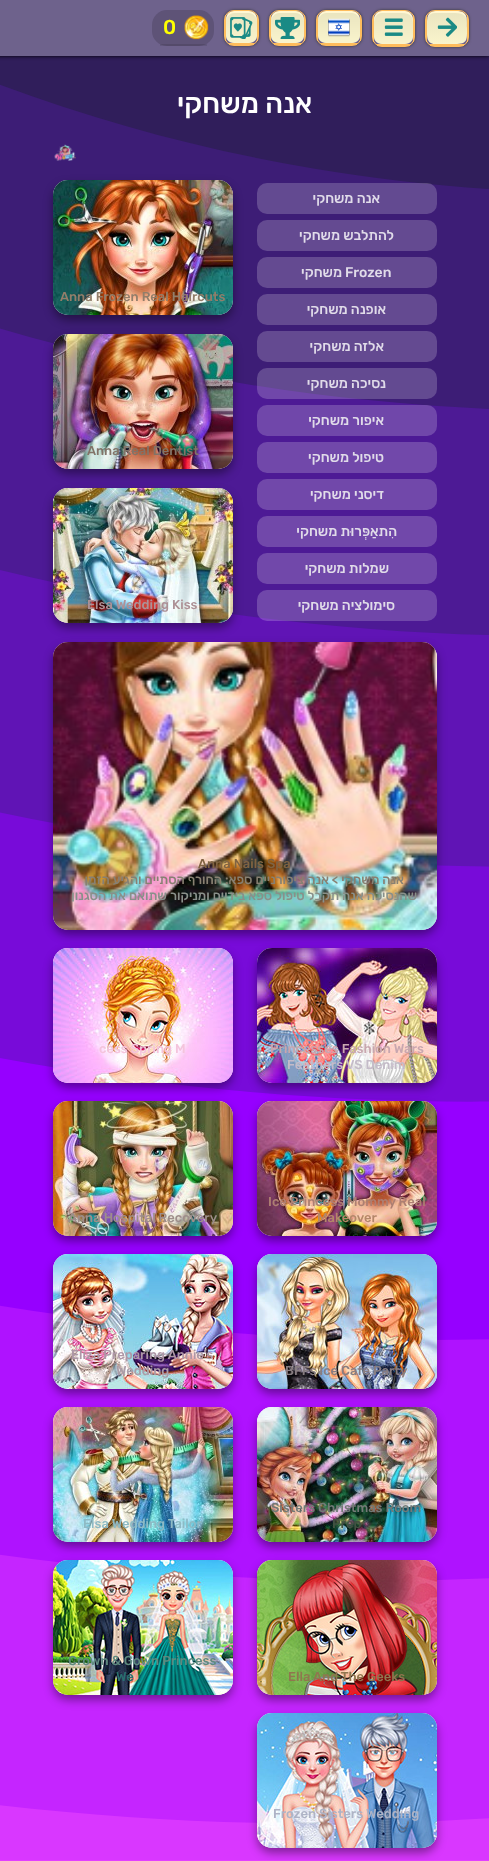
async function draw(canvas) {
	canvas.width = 489;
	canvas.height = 1861;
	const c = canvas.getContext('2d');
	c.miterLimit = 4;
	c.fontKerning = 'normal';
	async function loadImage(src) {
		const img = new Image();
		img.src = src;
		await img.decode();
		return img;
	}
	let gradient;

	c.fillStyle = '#fff';
	c.fillRect(0, 0, 489, 1861);
	c.drawImage(await loadImage('img1.png'), 0, 56, 489, 1805);
	c.fillStyle = '#000';
	c.filter = 'blur(2px)';
	c.beginPath();
	c.rect(-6, 0, 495, 56);
	c.fill();
	c.filter = 'none';
	c.fillStyle = '#6e628c';
	c.fillRect(0, 0, 489, 56);
	c.fillStyle = '#5e5377';
	c.beginPath();
	c.roundRect(152, 10, 62, 36, 15);
	c.fill();
	c.drawImage(await loadImage('img2.png'), 184, 15, 25, 25);
	c.fillStyle = '#0000001a';
	c.fillRect(160, 44, 47, 2);
	c.font = '300 20px Rubik';
	c.fillStyle = '#ff0';
	c.fillText('0', 163, 34);
	c.save();
	c.beginPath();
	c.moveTo(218, 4);
	c.lineTo(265, 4);
	c.lineTo(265, 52);
	c.lineTo(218, 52);
	c.closePath();
	c.moveTo(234, 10);
	c.lineTo(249, 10);
	c.bezierCurveTo(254.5, 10, 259, 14.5, 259, 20);
	c.lineTo(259, 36);
	c.bezierCurveTo(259, 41.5, 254.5, 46, 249, 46);
	c.lineTo(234, 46);
	c.bezierCurveTo(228.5, 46, 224, 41.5, 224, 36);
	c.lineTo(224, 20);
	c.bezierCurveTo(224, 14.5, 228.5, 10, 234, 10);
	c.closePath();
	c.clip('evenodd');
	c.fillStyle = '#333';
	c.filter = 'blur(1.5px)';
	c.beginPath();
	c.roundRect(224, 10, 35, 36, 10);
	c.fill();
	c.filter = 'none';
	c.restore();
	c.drawImage(await loadImage('img3.png'), 226, 11, 31, 32);
	c.fillStyle = '#fff7d2';
	c.beginPath();
	c.moveTo(234, 13);
	c.lineTo(249, 13);
	c.bezierCurveTo(253, 13, 257, 17, 257, 22);
	c.bezierCurveTo(257, 10, 251, 11, 241.5, 11);
	c.bezierCurveTo(232, 11, 226, 10, 226, 22);
	c.bezierCurveTo(226, 17, 230, 13, 234, 13);
	c.closePath();
	c.fill();
	c.beginPath();
	c.roundRect(224.5, 10.5, 34, 35, 9.5);
	c.strokeStyle = '#febc5c';
	c.stroke();
	for (const [x, y, w, h, color] of [
		[257, 15, 1, 26, '#febc5c'],
		[229, 43, 25, 2, '#febc5c'],
		[225, 15, 1, 26, '#febc5c'],
	]) {
		c.fillStyle = color;
		c.fillRect(x, y, w, h);
	}
	c.drawImage(await loadImage('img4.png'), 230, 17, 23, 22);
	c.save();
	c.beginPath();
	c.moveTo(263, 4);
	c.lineTo(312, 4);
	c.lineTo(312, 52);
	c.lineTo(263, 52);
	c.closePath();
	c.moveTo(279, 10);
	c.lineTo(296, 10);
	c.bezierCurveTo(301.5, 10, 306, 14.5, 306, 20);
	c.lineTo(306, 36);
	c.bezierCurveTo(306, 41.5, 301.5, 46, 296, 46);
	c.lineTo(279, 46);
	c.bezierCurveTo(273.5, 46, 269, 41.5, 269, 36);
	c.lineTo(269, 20);
	c.bezierCurveTo(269, 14.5, 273.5, 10, 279, 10);
	c.closePath();
	c.clip('evenodd');
	c.fillStyle = '#333';
	c.filter = 'blur(1.5px)';
	c.beginPath();
	c.roundRect(269, 10, 37, 36, 10);
	c.fill();
	c.filter = 'none';
	c.restore();
	c.drawImage(await loadImage('img5.png'), 271, 11, 33, 32);
	c.fillStyle = '#fff7d2';
	c.beginPath();
	c.moveTo(279, 13);
	c.lineTo(296, 13);
	c.bezierCurveTo(300, 13, 304, 17, 304, 22);
	c.bezierCurveTo(304, 10, 297, 11, 287.5, 11);
	c.bezierCurveTo(278, 11, 271, 10, 271, 22);
	c.bezierCurveTo(271, 17, 275, 13, 279, 13);
	c.closePath();
	c.fill();
	c.beginPath();
	c.roundRect(269.5, 10.5, 36, 35, 9.5);
	c.stroke();
	for (const [x, y, w, h, color] of [
		[304, 15, 1, 26, '#febc5c'],
		[274, 43, 27, 2, '#febc5c'],
		[270, 15, 1, 26, '#febc5c'],
	]) {
		c.fillStyle = color;
		c.fillRect(x, y, w, h);
	}
	c.drawImage(await loadImage('img6.png'), 275, 17, 25, 22);
	c.save();
	c.beginPath();
	c.moveTo(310, 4);
	c.lineTo(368, 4);
	c.lineTo(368, 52);
	c.lineTo(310, 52);
	c.closePath();
	c.moveTo(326, 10);
	c.lineTo(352, 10);
	c.bezierCurveTo(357.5, 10, 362, 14.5, 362, 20);
	c.lineTo(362, 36);
	c.bezierCurveTo(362, 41.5, 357.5, 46, 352, 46);
	c.lineTo(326, 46);
	c.bezierCurveTo(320.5, 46, 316, 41.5, 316, 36);
	c.lineTo(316, 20);
	c.bezierCurveTo(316, 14.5, 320.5, 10, 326, 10);
	c.closePath();
	c.clip('evenodd');
	c.fillStyle = '#333';
	c.filter = 'blur(1.5px)';
	c.beginPath();
	c.roundRect(316, 10, 46, 36, 10);
	c.fill();
	c.filter = 'none';
	c.restore();
	c.drawImage(await loadImage('img7.png'), 318, 11, 42, 32);
	c.fillStyle = '#fff7d2';
	c.beginPath();
	c.moveTo(326, 13);
	c.lineTo(352, 13);
	c.bezierCurveTo(356, 13, 360, 17, 360, 22);
	c.bezierCurveTo(360, 8, 349, 11, 339, 11);
	c.bezierCurveTo(329, 11, 318, 8, 318, 22);
	c.bezierCurveTo(318, 17, 322, 13, 326, 13);
	c.closePath();
	c.fill();
	c.beginPath();
	c.roundRect(316.5, 10.5, 45, 35, 9.5);
	c.stroke();
	for (const [x, y, w, h, color] of [
		[360, 15, 1, 26, '#febc5c'],
		[321, 43, 36, 2, '#febc5c'],
		[317, 15, 1, 26, '#febc5c'],
	]) {
		c.fillStyle = color;
		c.fillRect(x, y, w, h);
	}
	c.drawImage(await loadImage('img8.png'), 328, 18, 22, 19);
	c.save();
	c.beginPath();
	c.moveTo(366, 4);
	c.lineTo(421, 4);
	c.lineTo(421, 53);
	c.lineTo(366, 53);
	c.closePath();
	c.moveTo(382, 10);
	c.lineTo(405, 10);
	c.bezierCurveTo(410.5, 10, 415, 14.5, 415, 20);
	c.lineTo(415, 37);
	c.bezierCurveTo(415, 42.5, 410.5, 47, 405, 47);
	c.lineTo(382, 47);
	c.bezierCurveTo(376.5, 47, 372, 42.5, 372, 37);
	c.lineTo(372, 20);
	c.bezierCurveTo(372, 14.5, 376.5, 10, 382, 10);
	c.closePath();
	c.clip('evenodd');
	c.fillStyle = '#333';
	c.filter = 'blur(1.5px)';
	c.beginPath();
	c.roundRect(372, 10, 43, 37, 10);
	c.fill();
	c.filter = 'none';
	c.restore();
	c.drawImage(await loadImage('img9.png'), 374, 11, 39, 33);
	c.fillStyle = '#fff7d2';
	c.beginPath();
	c.moveTo(382, 13);
	c.lineTo(401, 13);
	c.bezierCurveTo(411.5, 13, 413, 17.5, 413, 24.5);
	c.lineTo(413, 20);
	c.bezierCurveTo(413, 15, 409.5, 11, 405, 11);
	c.lineTo(382, 11);
	c.bezierCurveTo(377.5, 11, 374, 15, 374, 20);
	c.lineTo(374, 24.5);
	c.bezierCurveTo(374, 19, 375.5, 13, 382, 13);
	c.closePath();
	c.moveTo(413, 36.5);
	c.lineTo(413, 38);
	c.closePath();
	c.moveTo(374, 38.5);
	c.lineTo(374, 36);
	c.closePath();
	c.fill('evenodd');
	c.beginPath();
	c.roundRect(372.5, 10.5, 42, 36, 9.5);
	c.stroke();
	for (const [x, y, w, h, color] of [
		[413, 15, 1, 27, '#febc5c'],
		[377, 44, 33, 2, '#febc5c'],
		[373, 15, 1, 27, '#febc5c'],
	]) {
		c.fillStyle = color;
		c.fillRect(x, y, w, h);
	}
	c.drawImage(await loadImage('img10.png'), 384, 18, 19, 18);
	c.save();
	c.beginPath();
	c.moveTo(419, 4);
	c.lineTo(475, 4);
	c.lineTo(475, 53);
	c.lineTo(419, 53);
	c.closePath();
	c.moveTo(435, 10);
	c.lineTo(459, 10);
	c.bezierCurveTo(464.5, 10, 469, 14.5, 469, 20);
	c.lineTo(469, 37);
	c.bezierCurveTo(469, 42.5, 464.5, 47, 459, 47);
	c.lineTo(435, 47);
	c.bezierCurveTo(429.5, 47, 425, 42.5, 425, 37);
	c.lineTo(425, 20);
	c.bezierCurveTo(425, 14.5, 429.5, 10, 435, 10);
	c.closePath();
	c.clip('evenodd');
	c.fillStyle = '#333';
	c.filter = 'blur(1.5px)';
	c.beginPath();
	c.roundRect(425, 10, 44, 37, 10);
	c.fill();
	c.filter = 'none';
	c.restore();
	gradient = c.createLinearGradient(447, 11, 447, 44);
	gradient.addColorStop(0, '#e9e4bf');
	gradient.addColorStop(1, '#f9f4cc');
	c.fillStyle = gradient;
	c.beginPath();
	c.moveTo(435, 11);
	c.lineTo(455, 11);
	c.bezierCurveTo(468, 11, 467, 17, 467, 28);
	c.bezierCurveTo(467, 40, 468, 44, 455, 44);
	c.lineTo(435, 44);
	c.bezierCurveTo(426, 44, 427, 35, 427, 28);
	c.bezierCurveTo(427, 22, 426, 11, 435, 11);
	c.closePath();
	c.fill();
	c.fillStyle = '#fff7d2';
	c.beginPath();
	c.moveTo(435, 13);
	c.lineTo(455, 13);
	c.bezierCurveTo(465, 13, 467, 17, 467, 24);
	c.bezierCurveTo(467, 9, 460, 11, 447, 11);
	c.bezierCurveTo(434, 11, 427, 9, 427, 24);
	c.bezierCurveTo(427, 19, 428, 13, 435, 13);
	c.closePath();
	c.moveTo(467, 36);
	c.lineTo(467, 38);
	c.closePath();
	c.moveTo(427, 39);
	c.lineTo(427, 36);
	c.closePath();
	c.fill('evenodd');
	c.beginPath();
	c.roundRect(425.5, 10.5, 43, 36, 9.5);
	c.stroke();
	for (const [x, y, w, h, color] of [
		[467, 15, 1, 27, '#febc5c'],
		[430, 44, 34, 2, '#febc5c'],
		[426, 15, 1, 27, '#febc5c'],
	]) {
		c.fillStyle = color;
		c.fillRect(x, y, w, h);
	}
	c.drawImage(await loadImage('img11.png'), 437, 17, 20, 20);
	c.direction = 'rtl';
	c.font = '300 28px Rubik';
	c.fillStyle = '#fff';
	c.fillText('אנה משחקי', 312, 113);
	c.drawImage(await loadImage('img12.png'), 54, 144, 22, 17);
	c.fillStyle = '#00000066';
	c.filter = 'blur(5px)';
	c.beginPath();
	c.roundRect(53, 185, 180, 135, 15);
	c.fill();
	c.filter = 'none';
	c.fillStyle = '#fff';
	c.beginPath();
	c.roundRect(53, 180, 180, 135, 15);
	c.fill();
	c.drawImage(await loadImage('img13.png'), 53, 180, 180, 135);
	c.direction = 'ltr';
	c.font = '300 13px Rubik';
	c.fillStyle = '#927e6a';
	c.fillText('Anna Frozen Real Haircuts', 60, 301);
	c.fillStyle = '#ffffff33';
	c.beginPath();
	c.roundRect(257, 183, 180, 31, 10);
	c.fill();
	c.direction = 'rtl';
	c.font = '300 14px Rubik';
	c.fillStyle = '#e0dbe9';
	c.fillText('אנה משחקי', 380, 203);
	c.fillStyle = '#644a91';
	c.beginPath();
	c.roundRect(257, 220, 180, 31, 10);
	c.fill();
	c.fillStyle = '#e0dbe9';
	c.fillText('להתלבש משחקי', 394, 240);
	c.fillStyle = '#644a91';
	c.beginPath();
	c.roundRect(257, 257, 180, 31, 10);
	c.fill();
	c.fillStyle = '#e0dbe9';
	c.fillText('משחקי', 342, 277);
	c.direction = 'ltr';
	c.fillText('Frozen', 345, 277);
	c.fillStyle = '#644a91';
	c.beginPath();
	c.roundRect(257, 294, 180, 31, 10);
	c.fill();
	c.direction = 'rtl';
	c.fillStyle = '#e0dbe9';
	c.fillText('אופנה משחקי', 386, 314);
	c.fillStyle = '#644a91';
	c.beginPath();
	c.roundRect(257, 331, 180, 31, 10);
	c.fill();
	c.fillStyle = '#e0dbe9';
	c.fillText('אלזה משחקי', 384, 351);
	c.fillStyle = '#ffffff33';
	c.beginPath();
	c.roundRect(257, 368, 180, 31, 10);
	c.fill();
	c.fillStyle = '#e0dbe9';
	c.fillText('נסיכה משחקי', 386, 388);
	c.fillStyle = '#ffffff33';
	c.beginPath();
	c.roundRect(257, 405, 180, 31, 10);
	c.fill();
	c.fillStyle = '#e0dbe9';
	c.fillText('איפור משחקי', 384, 425);
	c.fillStyle = '#7148aa';
	c.beginPath();
	c.roundRect(257, 442, 180, 31, 10);
	c.fill();
	c.fillStyle = '#e0dbe9';
	c.fillText('טיפול משחקי', 384, 462);
	c.fillStyle = '#7148aa';
	c.beginPath();
	c.roundRect(257, 479, 180, 31, 10);
	c.fill();
	c.fillStyle = '#e0dbe9';
	c.fillText('דיסני משחקי', 384, 499);
	c.fillStyle = '#7148aa';
	c.beginPath();
	c.roundRect(257, 516, 180, 31, 10);
	c.fill();
	c.fillStyle = '#e0dbe9';
	c.fillText('הִתאַפְּרוּת משחקי', 397, 536);
	c.fillStyle = '#7148aa';
	c.beginPath();
	c.roundRect(257, 553, 180, 31, 10);
	c.fill();
	c.fillStyle = '#e0dbe9';
	c.fillText('שמלות משחקי', 389, 573);
	c.fillStyle = '#ffffff33';
	c.beginPath();
	c.roundRect(257, 590, 180, 31, 10);
	c.fill();
	c.fillStyle = '#e0dbe9';
	c.fillText('סימולציה משחקי', 395, 610);
	c.fillStyle = '#00000066';
	c.filter = 'blur(5px)';
	c.beginPath();
	c.roundRect(53, 339, 180, 135, 15);
	c.fill();
	c.filter = 'none';
	c.fillStyle = '#fff';
	c.beginPath();
	c.roundRect(53, 334, 180, 135, 15);
	c.fill();
	c.drawImage(await loadImage('img14.png'), 53, 334, 180, 135);
	c.direction = 'ltr';
	c.font = '300 13px Rubik';
	c.fillStyle = '#827368';
	c.fillText('Anna Real Dentist', 87, 455);
	c.fillStyle = '#00000066';
	c.filter = 'blur(5px)';
	c.beginPath();
	c.roundRect(53, 493, 180, 135, 15);
	c.fill();
	c.filter = 'none';
	c.fillStyle = '#fff';
	c.beginPath();
	c.roundRect(53, 488, 180, 135, 15);
	c.fill();
	c.drawImage(await loadImage('img15.png'), 53, 488, 180, 135);
	c.fillStyle = '#ad9196';
	c.fillText('Elsa Wedding Kiss', 87, 609);
	c.fillStyle = '#00000066';
	c.filter = 'blur(5px)';
	c.beginPath();
	c.roundRect(53, 647, 384, 288, 15);
	c.fill();
	c.filter = 'none';
	c.fillStyle = '#fff';
	c.beginPath();
	c.roundRect(53, 642, 384, 288, 15);
	c.fill();
	c.drawImage(await loadImage('img16.png'), 53, 642, 384, 288);
	c.fillStyle = '#806342';
	c.fillText('Anna Nails Spa', 198, 868);
	c.direction = 'rtl';
	c.fillStyle = '#888072';
	c.fillText('אנה משחקי > אנה ציפורניים ספא: החורף הסתיים והגיע הזמן', 404, 884);
	c.fillStyle = '#89908a';
	c.fillText('שהנסיכה אנה תקבל טיפול ספא בידיים ומניקור שתואם את הסגנון', 417, 900);
	c.fillStyle = '#00000066';
	c.filter = 'blur(5px)';
	c.beginPath();
	c.roundRect(53, 953, 180, 135, 15);
	c.fill();
	c.filter = 'none';
	c.fillStyle = '#fff';
	c.beginPath();
	c.roundRect(53, 948, 180, 135, 15);
	c.fill();
	c.drawImage(await loadImage('img17.png'), 53, 948, 180, 135);
	c.direction = 'ltr';
	c.fillStyle = '#f4c4dc';
	c.fillText('cess Spring M', 99, 1053);
	c.fillStyle = '#00000066';
	c.filter = 'blur(5px)';
	c.beginPath();
	c.roundRect(257, 953, 180, 135, 15);
	c.fill();
	c.filter = 'none';
	c.fillStyle = '#fff';
	c.beginPath();
	c.roundRect(257, 948, 180, 135, 15);
	c.fill();
	c.drawImage(await loadImage('img18.png'), 257, 948, 180, 135);
	c.fillStyle = '#c8a7af';
	c.fillText('Princesses Fashion Wars', 270, 1053);
	c.fillStyle = '#c4bbc8';
	c.fillText('Feathers VS Denim', 287, 1069);
	c.fillStyle = '#00000066';
	c.filter = 'blur(5px)';
	c.beginPath();
	c.roundRect(53, 1106, 180, 135, 15);
	c.fill();
	c.filter = 'none';
	c.fillStyle = '#fff';
	c.beginPath();
	c.roundRect(53, 1101, 180, 135, 15);
	c.fill();
	c.drawImage(await loadImage('img19.png'), 53, 1101, 180, 135);
	c.fillStyle = '#9e8e8a';
	c.fillText('Anna Hospital Recovery', 68, 1222);
	c.fillStyle = '#00000066';
	c.filter = 'blur(5px)';
	c.beginPath();
	c.roundRect(257, 1106, 180, 135, 15);
	c.fill();
	c.filter = 'none';
	c.fillStyle = '#fff';
	c.beginPath();
	c.roundRect(257, 1101, 180, 135, 15);
	c.fill();
	c.drawImage(await loadImage('img20.png'), 257, 1101, 180, 135);
	c.fillStyle = '#ad7f72';
	c.fillText('Ice Princess Mommy Real', 268, 1206);
	c.fillStyle = '#b48769';
	c.fillText('Makeover', 317, 1222);
	c.fillStyle = '#00000066';
	c.filter = 'blur(5px)';
	c.beginPath();
	c.roundRect(53, 1259, 180, 135, 15);
	c.fill();
	c.filter = 'none';
	c.fillStyle = '#fff';
	c.beginPath();
	c.roundRect(53, 1254, 180, 135, 15);
	c.fill();
	c.drawImage(await loadImage('img21.png'), 53, 1254, 180, 135);
	c.fillStyle = '#ae97a7';
	c.fillText('Eliza Preparing Annie\'s', 71, 1359);
	c.fillStyle = '#aa9da8';
	c.fillText('Wedding', 116, 1375);
	c.fillStyle = '#00000066';
	c.filter = 'blur(5px)';
	c.beginPath();
	c.roundRect(257, 1259, 180, 135, 15);
	c.fill();
	c.filter = 'none';
	c.fillStyle = '#fff';
	c.beginPath();
	c.roundRect(257, 1254, 180, 135, 15);
	c.fill();
	c.drawImage(await loadImage('img22.png'), 257, 1254, 180, 135);
	c.fillStyle = '#887d81';
	c.fillText('BFFs Ice Cafe Party', 285, 1375);
	c.fillStyle = '#00000066';
	c.filter = 'blur(5px)';
	c.beginPath();
	c.roundRect(53, 1412, 180, 135, 15);
	c.fill();
	c.filter = 'none';
	c.fillStyle = '#fff';
	c.beginPath();
	c.roundRect(53, 1407, 180, 135, 15);
	c.fill();
	c.drawImage(await loadImage('img23.png'), 53, 1407, 180, 135);
	c.fillStyle = '#8ebac4';
	c.fillText('Elsa Wedding Tailor', 83, 1528);
	c.fillStyle = '#00000066';
	c.filter = 'blur(5px)';
	c.beginPath();
	c.roundRect(257, 1412, 180, 135, 15);
	c.fill();
	c.filter = 'none';
	c.fillStyle = '#fff';
	c.beginPath();
	c.roundRect(257, 1407, 180, 135, 15);
	c.fill();
	c.drawImage(await loadImage('img24.png'), 257, 1407, 180, 135);
	c.fillStyle = '#737a77';
	c.fillText('Sisters Christmas Room', 271, 1512);
	c.fillStyle = '#425142';
	c.fillText('Prep', 332, 1528);
	c.fillStyle = '#00000066';
	c.filter = 'blur(5px)';
	c.beginPath();
	c.roundRect(53, 1565, 180, 135, 15);
	c.fill();
	c.filter = 'none';
	c.fillStyle = '#fff';
	c.beginPath();
	c.roundRect(53, 1560, 180, 135, 15);
	c.fill();
	c.drawImage(await loadImage('img25.png'), 53, 1560, 180, 135);
	c.fillStyle = '#5f8a7f';
	c.fillText('Crown & Gown Princess', 68, 1665);
	c.fillStyle = '#296f6e';
	c.fillText('We', 116, 1681);
	c.fillStyle = '#00000066';
	c.filter = 'blur(5px)';
	c.beginPath();
	c.roundRect(257, 1565, 180, 135, 15);
	c.fill();
	c.filter = 'none';
	c.fillStyle = '#fff';
	c.beginPath();
	c.roundRect(257, 1560, 180, 135, 15);
	c.fill();
	c.drawImage(await loadImage('img26.png'), 257, 1560, 180, 135);
	c.fillStyle = '#90764f';
	c.fillText('Ella And The Geeks', 288, 1681);
	c.fillStyle = '#00000066';
	c.filter = 'blur(5px)';
	c.beginPath();
	c.roundRect(257, 1718, 180, 135, 15);
	c.fill();
	c.filter = 'none';
	c.fillStyle = '#fff';
	c.beginPath();
	c.roundRect(257, 1713, 180, 135, 15);
	c.fill();
	c.drawImage(await loadImage('img27.png'), 257, 1713, 180, 135);
	c.fillStyle = '#aeb3c6';
	c.fillText('Frozen Sisters Wedding', 273, 1818);
}

draw(document.querySelector('canvas'));
